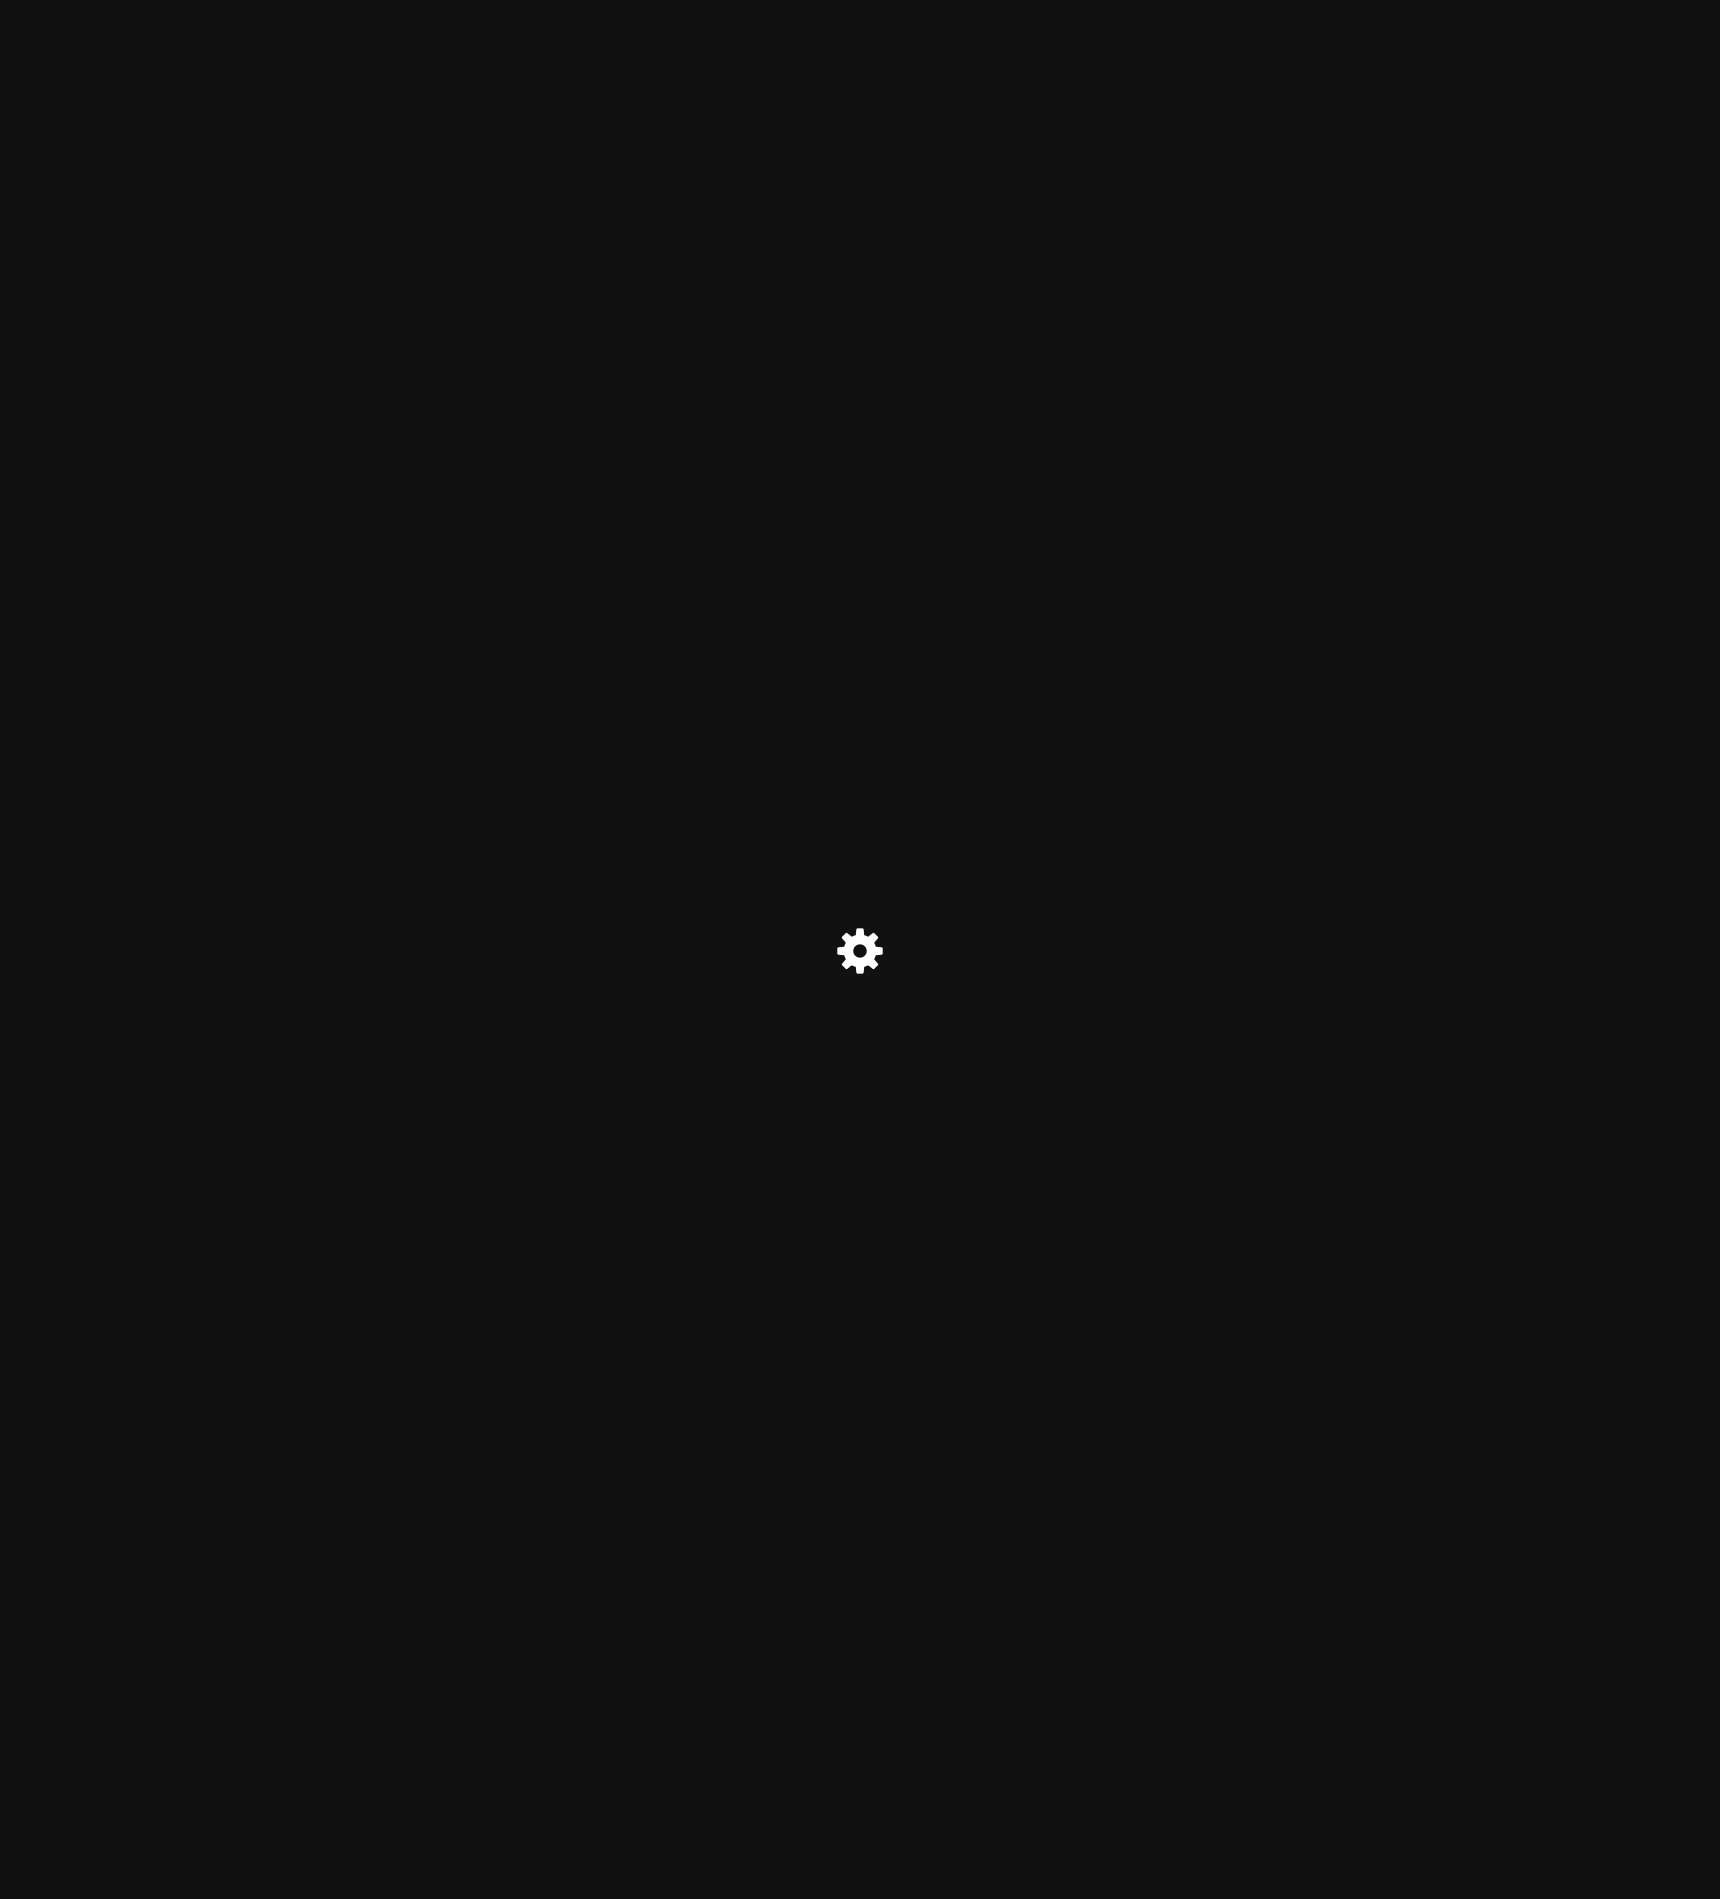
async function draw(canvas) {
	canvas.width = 1720;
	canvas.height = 1899;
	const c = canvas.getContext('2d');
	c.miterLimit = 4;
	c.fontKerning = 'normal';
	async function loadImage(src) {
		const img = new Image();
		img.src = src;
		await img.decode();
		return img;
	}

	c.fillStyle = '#111';
	c.fillRect(0, 0, 1720, 1899);
	c.drawImage(await loadImage('img1.png'), 837, 928, 46, 46);
}

draw(document.querySelector('canvas'));
